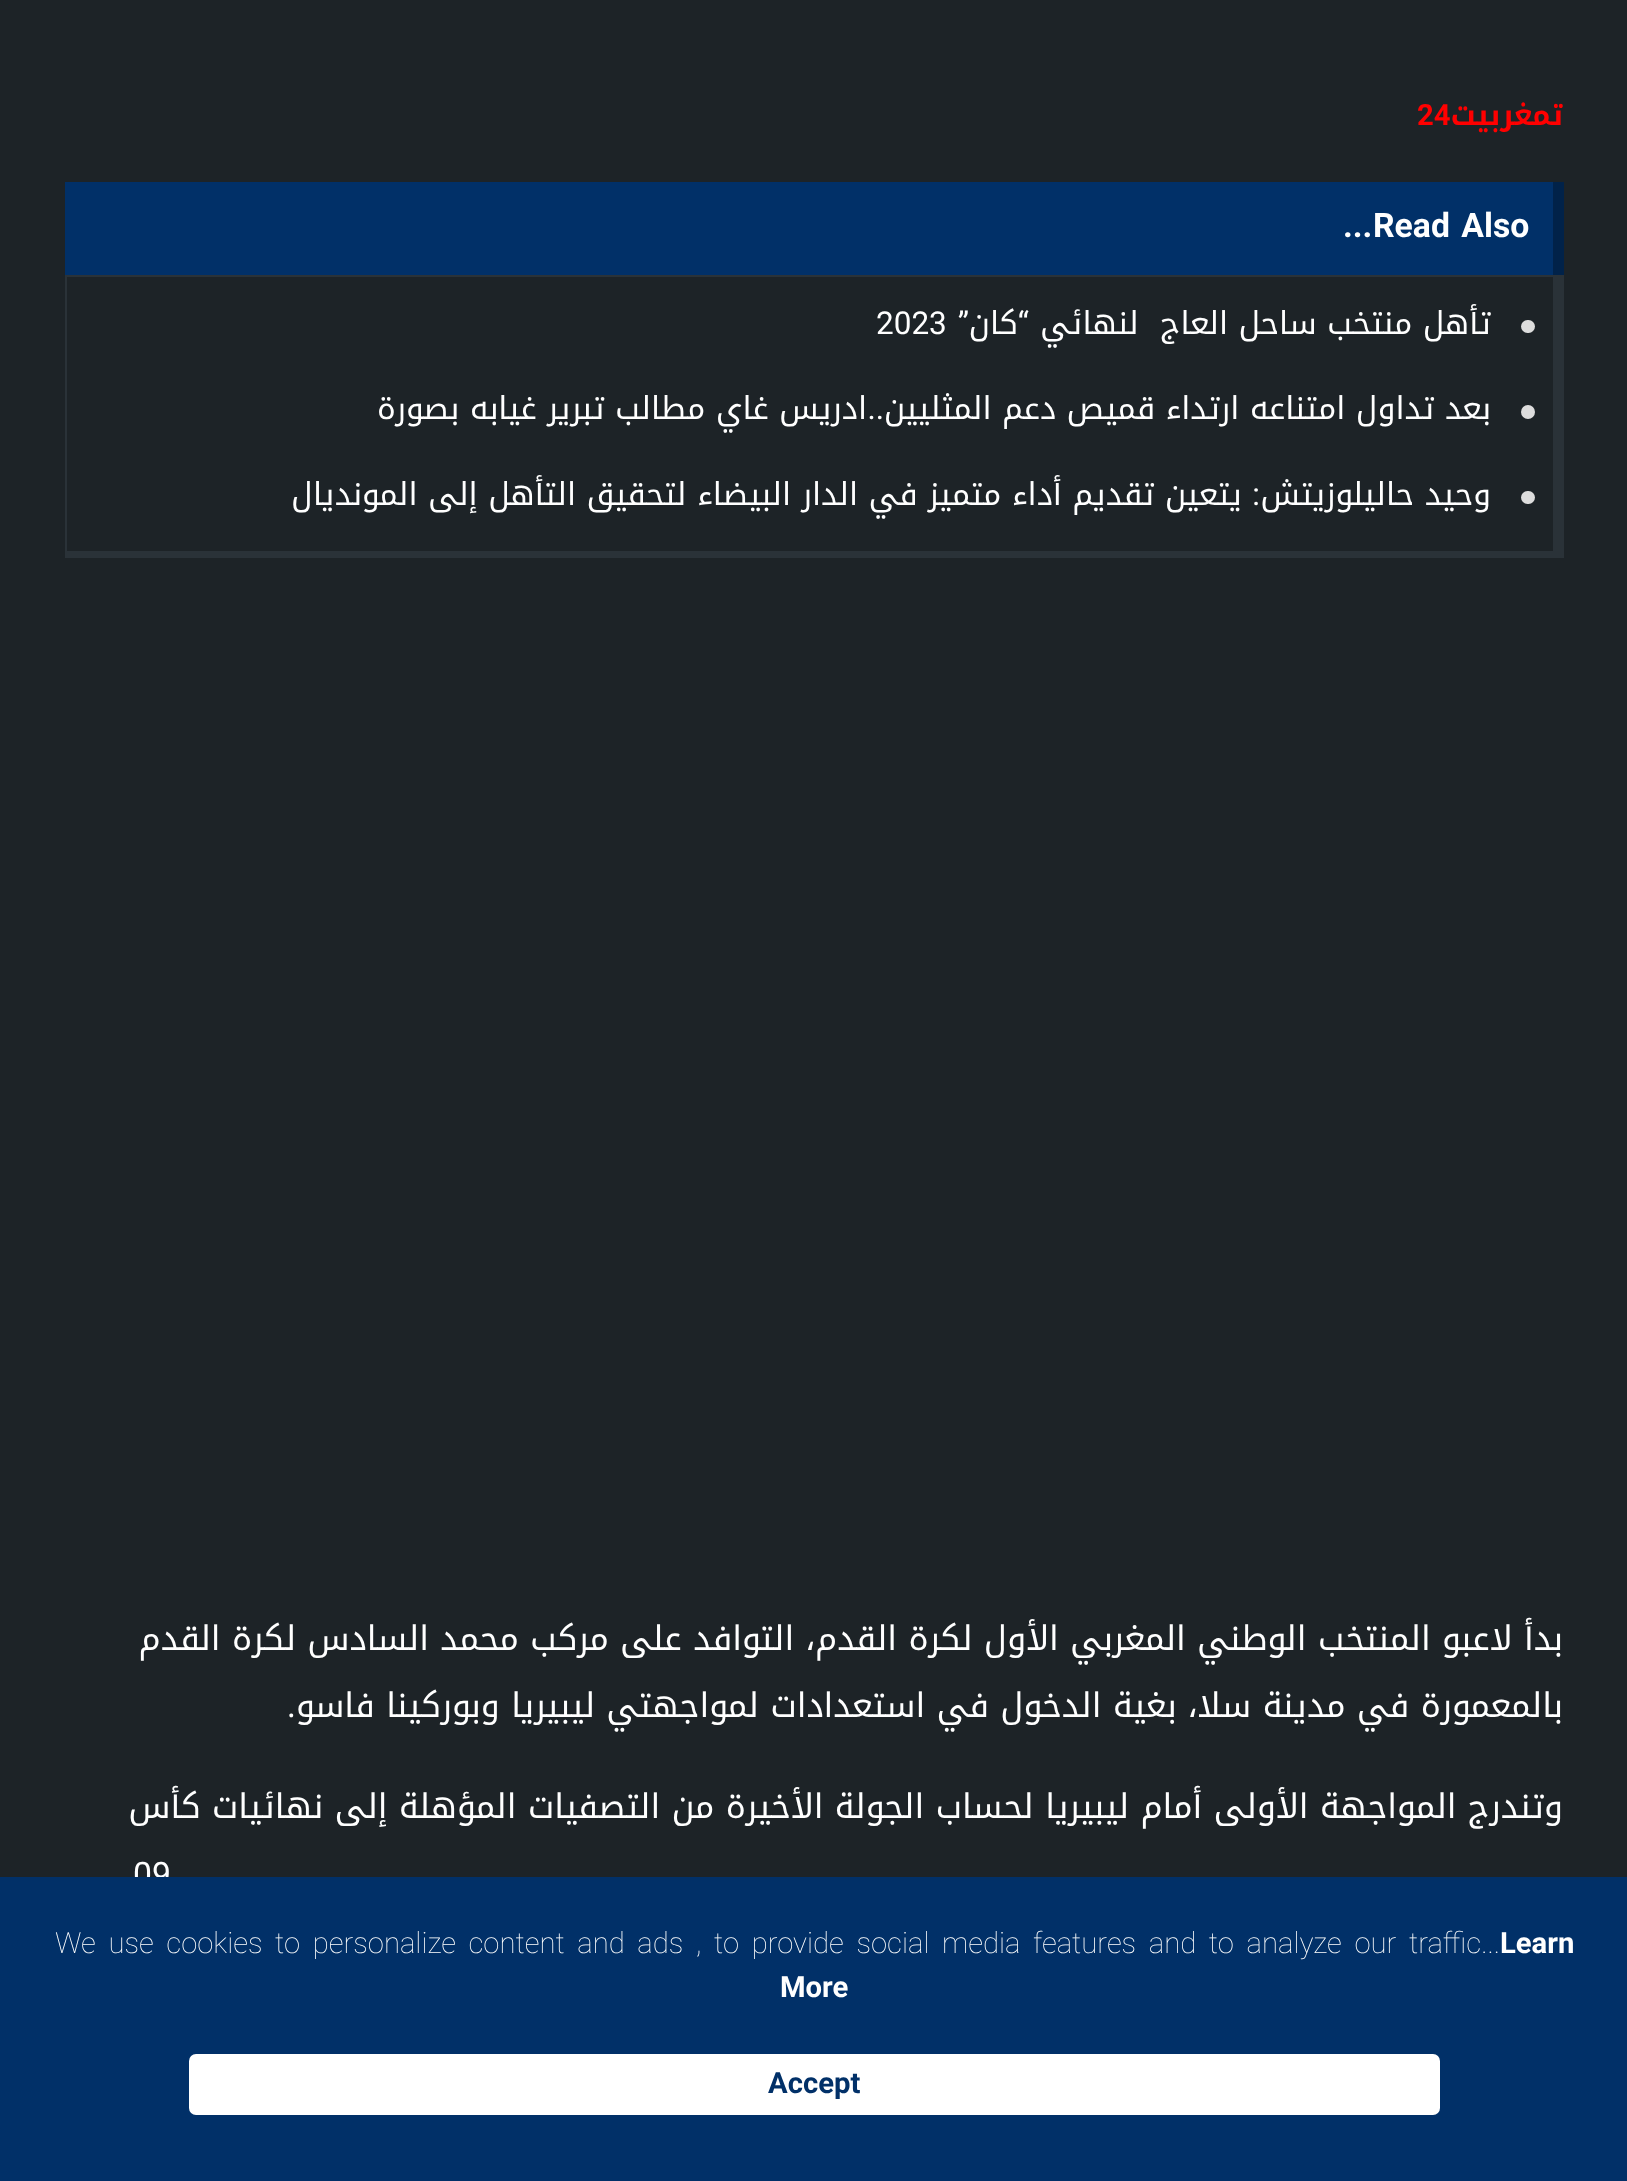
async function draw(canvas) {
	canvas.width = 1627;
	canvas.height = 2181;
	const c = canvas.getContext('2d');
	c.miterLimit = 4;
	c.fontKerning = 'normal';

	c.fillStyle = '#1d2327';
	c.fillRect(0, 0, 1627, 2181);
	c.direction = 'rtl';
	c.font = 'bold 29.25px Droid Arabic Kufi';
	c.fillStyle = '#f00';
	c.fillText('تمغربيت', 1563, 125);
	c.direction = 'ltr';
	c.font = 'bold 29.25px Roboto';
	c.fillText('24', 1417, 125);
	c.fillStyle = '#013068';
	c.fillRect(65, 182, 1488, 93);
	c.fillStyle = '#012249';
	c.fillRect(1553, 182, 11, 93);
	c.wordSpacing = '3px';
	c.font = 'bold 33.75px Roboto';
	c.fillStyle = '#fff';
	c.fillText('Read Also', 1373, 237);
	c.wordSpacing = '0px';
	c.fillText('...', 1343, 237);
	for (const [x, y, w, h, color] of [
		[65, 275, 1488, 2, '#2a3238'],
		[1553, 275, 11, 276, '#2a3238'],
		[65, 551, 1499, 7, '#2a3238'],
		[65, 275, 2, 283, '#2a3238'],
	]) {
		c.fillStyle = color;
		c.fillRect(x, y, w, h);
	}
	c.fillStyle = '#ddd';
	c.beginPath();
	c.roundRect(1521, 320, 14, 13, 6.5);
	c.fill();
	c.direction = 'rtl';
	c.font = '31.5px Droid Arabic Kufi';
	c.fillStyle = '#fff';
	c.fillText('تأهل منتخب ساحل العاج  لنهائي', 1491, 334);
	c.font = '31.5px Roboto';
	c.fillText('“', 1029, 334);
	c.font = '31.5px Droid Arabic Kufi';
	c.fillText('كان', 1018, 334);
	c.font = '31.5px Roboto';
	c.fillText('”', 969, 334);
	c.direction = 'ltr';
	c.fillText('2023', 876, 334);
	c.fillStyle = '#ddd';
	c.beginPath();
	c.arc(1528, 412, 7, 0, 2 * Math.PI);
	c.fill();
	c.direction = 'rtl';
	c.font = '31.5px Droid Arabic Kufi';
	c.fillStyle = '#fff';
	c.fillText('بعد تداول امتناعه ارتداء قميص دعم المثليين', 1491, 419);
	c.font = '31.5px Roboto';
	c.fillText('..', 884, 419);
	c.font = '31.5px Droid Arabic Kufi';
	c.fillText('ادريس غاي مطالب تبرير غيابه بصورة', 867, 419);
	c.fillStyle = '#ddd';
	c.beginPath();
	c.roundRect(1521, 491, 14, 13, 6.5);
	c.fill();
	c.fillStyle = '#fff';
	c.fillText('وحيد حاليلوزيتش', 1491, 505);
	c.font = '31.5px Roboto';
	c.fillText(':', 1260, 505);
	c.font = '31.5px Droid Arabic Kufi';
	c.fillText('يتعين تقديم أداء متميز في الدار البيضاء لتحقيق التأهل إلى المونديال', 1242, 505);
	c.font = '33.75px Droid Arabic Kufi';
	c.fillText('بدأ لاعبو المنتخب الوطني المغربي الأول لكرة القدم، التوافد على مركب محمد السادس لكرة القدم', 1563, 1650);
	c.fillText('بالمعمورة في مدينة سلا، بغية الدخول في استعدادات لمواجهتي ليبيريا وبوركينا فاسو', 1563, 1717);
	c.font = '33.75px Roboto';
	c.fillText('.', 296, 1717);
	c.font = '33.75px Droid Arabic Kufi';
	c.fillText('وتندرج المواجهة الأولى أمام ليبيريا لحساب الجولة الأخيرة من التصفيات المؤهلة إلى نهائيات كأس', 1563, 1818);
	c.direction = 'ltr';
	c.font = '33.75px Roboto';
	c.fillText('09', 133, 1886);
	c.fillStyle = '#013068';
	c.fillRect(0, 1877, 1627, 304);
	c.font = 'bold 29.25px Roboto';
	c.fillStyle = '#fff';
	c.fillText('Learn', 1500, 1953);
	c.wordSpacing = '5.6px';
	c.font = '100 29.25px Roboto';
	c.fillText('We use cookies to personalize content and ads , to provide social media features and to analyze our traffic...', 55, 1953);
	c.wordSpacing = '0px';
	c.font = 'bold 29.25px Roboto';
	c.fillText('More', 780, 1997);
	c.beginPath();
	c.roundRect(189, 2054, 1251, 61, 7);
	c.fill();
	c.fillStyle = '#013068';
	c.fillText('Accept', 768, 2093);
}

draw(document.querySelector('canvas'));
